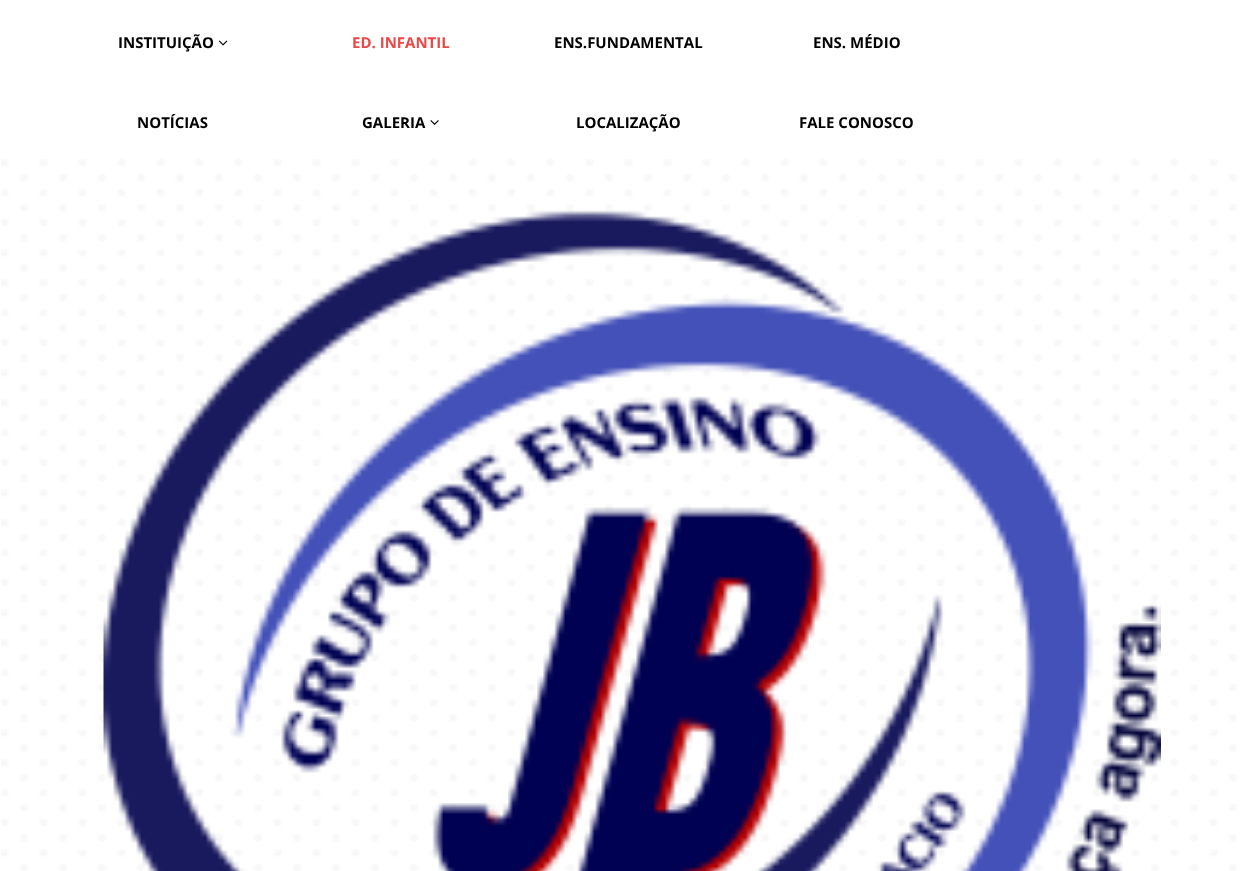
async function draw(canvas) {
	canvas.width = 1242;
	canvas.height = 871;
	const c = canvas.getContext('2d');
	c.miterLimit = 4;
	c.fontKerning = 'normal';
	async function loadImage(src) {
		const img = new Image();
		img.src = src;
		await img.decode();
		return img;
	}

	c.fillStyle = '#fff';
	c.fillRect(0, 0, 1242, 871);
	c.font = 'bold 15px Open Sans';
	c.fillStyle = '#000';
	c.fillText('INSTITUIÇÃO', 118, 48);
	c.drawImage(await loadImage('img1.png'), 218, 40, 10, 6);
	c.fillStyle = '#eb4947';
	c.fillText('ED. INFANTIL', 352, 48);
	c.fillStyle = '#000';
	for (const [text, x, y] of [
		['ENS.FUNDAMENTAL', 554, 48],
		['ENS. MÉDIO', 813, 48],
		['NOTÍCIAS', 137, 128],
		['GALERIA', 362, 128],
	]) {
		c.fillText(text, x, y);
	}
	c.drawImage(await loadImage('img2.png'), 430, 120, 9, 5);
	c.fillText('LOCALIZAÇÃO', 576, 128);
	c.fillText('FALE CONOSCO', 799, 128);
	c.drawImage(await loadImage('img3.png'), 1, 159, 1236, 712);
	c.drawImage(await loadImage('img4.png'), 103, 210, 1058, 661);
}

draw(document.querySelector('canvas'));
